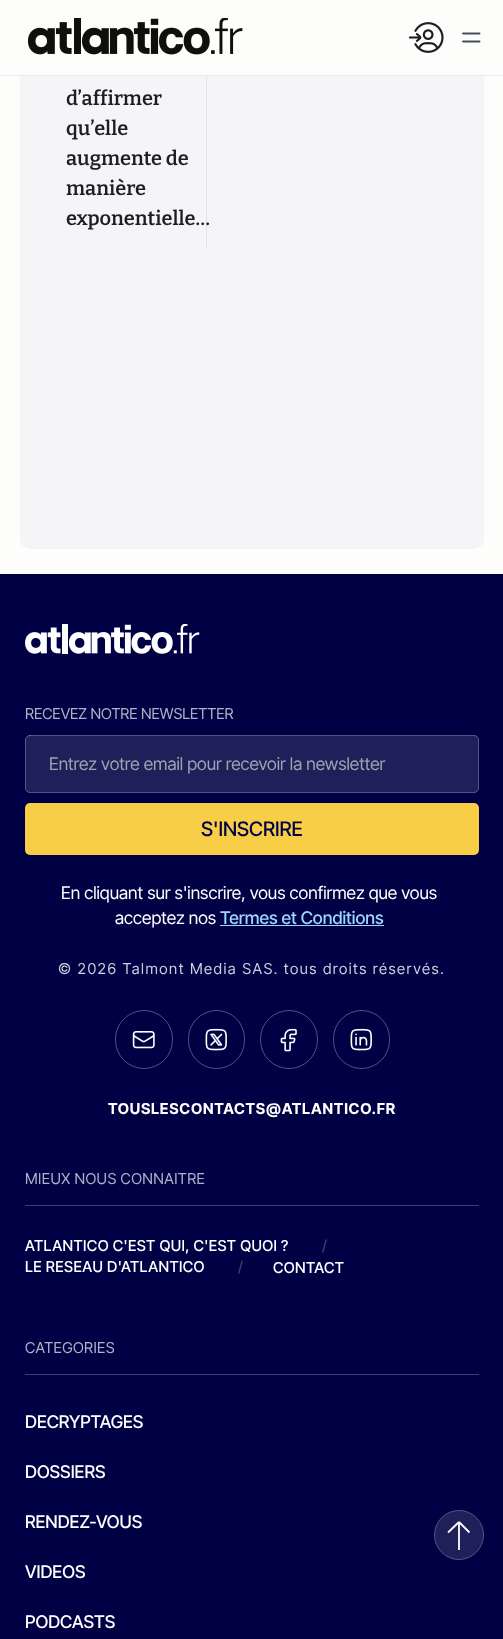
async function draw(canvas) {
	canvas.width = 503;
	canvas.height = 1639;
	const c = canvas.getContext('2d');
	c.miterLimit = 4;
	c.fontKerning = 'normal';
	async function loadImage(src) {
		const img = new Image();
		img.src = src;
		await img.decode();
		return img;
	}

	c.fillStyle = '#fdfdfc';
	c.fillRect(0, 0, 503, 1639);
	c.fillStyle = '#f5f5f8';
	c.beginPath();
	c.roundRect(20, -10, 464, 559, 10);
	c.fill();
	c.fillStyle = '#fdfdfc';
	c.fillRect(20, 0, 464, 75);
	c.fillStyle = '#ebebf0';
	c.fillRect(0, 75, 503, 1);
	c.drawImage(await loadImage('img1.png'), 27, 18, 216, 37);
	c.drawImage(await loadImage('img2.png'), 409, 22, 35, 31);
	c.beginPath();
	c.moveTo(463, 33.5);
	c.lineTo(479.5, 33.5);
	c.moveTo(463, 41.5);
	c.lineTo(479.5, 41.5);
	c.strokeStyle = '#494f5a';
	c.lineWidth = 1.9;
	c.lineCap = 'round';
	c.lineJoin = 'round';
	c.stroke();
	c.fillStyle = '#e0e2e6';
	c.fillRect(206, 76, 1, 173);
	c.font = '600 20px Bitter';
	c.fillStyle = '#1c1e22';
	for (const [text, x, y] of [
		['d’affirmer', 66, 105],
		['qu’elle', 66, 135],
		['augmente de', 66, 165],
		['manière', 66, 195],
		['exponentielle…', 66, 225],
	]) {
		c.fillText(text, x, y);
	}
	c.fillStyle = '#004';
	c.fillRect(0, 574, 503, 1065);
	c.drawImage(await loadImage('img3.png'), 25, 624, 175, 30);
	c.font = '15px Inter Tight';
	c.fillStyle = '#b2b2c7';
	c.fillText('RECEVEZ NOTRE NEWSLETTER', 25, 719);
	c.fillStyle = '#1f1f5a';
	c.beginPath();
	c.roundRect(25, 735, 454, 58, 5);
	c.fill();
	c.beginPath();
	c.roundRect(25.5, 735.5, 453, 57, 4.5);
	c.strokeStyle = '#ffffff3d';
	c.lineWidth = 1;
	c.lineJoin = 'miter';
	c.stroke();
	c.font = '17.5px Inter Tight';
	c.fillStyle = '#9ca3af';
	c.fillText('Entrez votre email pour recevoir la newsletter', 49, 770);
	c.fillStyle = '#f7ce46';
	c.beginPath();
	c.roundRect(25, 803, 454, 52, 5);
	c.fill();
	c.font = '500 20px Inter Tight';
	c.fillStyle = '#004';
	c.fillText('S\'INSCRIRE', 201, 836);
	c.font = '17.5px Inter Tight';
	c.fillStyle = '#fff';
	c.fillText('En cliquant sur s\'inscrire, vous confirmez que vous', 61, 899);
	c.fillText('acceptez nos', 115, 924);
	c.font = '500 17.5px Inter Tight';
	c.fillStyle = '#9bd7ff';
	c.fillText('Termes et Conditions', 220, 924);
	c.fillRect(220, 925, 164, 1);
	c.letterSpacing = '1.5px';
	c.font = '15px Inter Tight';
	c.fillStyle = '#ccccda';
	c.fillText('© 2026 Talmont Media SAS. tous droits réservés.', 58, 974);
	c.beginPath();
	c.roundRect(115.5, 1010.5, 57, 58, 28.5);
	c.strokeStyle = '#525280';
	c.stroke();
	c.drawImage(await loadImage('img4.png'), 132, 1031, 23, 18);
	c.beginPath();
	c.roundRect(188.5, 1010.5, 56, 58, 28);
	c.stroke();
	c.drawImage(await loadImage('img5.png'), 205, 1028, 22, 23);
	c.beginPath();
	c.roundRect(260.5, 1010.5, 57, 58, 28.5);
	c.stroke();
	c.drawImage(await loadImage('img6.png'), 280, 1028, 17, 24);
	c.beginPath();
	c.roundRect(333.5, 1010.5, 56, 58, 28);
	c.stroke();
	c.drawImage(await loadImage('img7.png'), 350, 1028, 22, 23);
	c.letterSpacing = '0.75px';
	c.font = 'bold 15px Inter Tight';
	c.fillStyle = '#fff';
	c.fillText('TOUSLESCONTACTS@ATLANTICO.FR', 108, 1114);
	c.fillStyle = '#3d3d71';
	c.fillRect(25, 1205, 454, 1);
	c.letterSpacing = '0.4px';
	c.font = '15px Inter Tight';
	c.fillStyle = '#b2b2c7';
	c.fillText('MIEUX NOUS CONNAITRE', 25, 1184);
	c.font = '500 15px Inter Tight';
	c.fillStyle = '#fff';
	c.fillText('ATLANTICO C\'EST QUI, C\'EST QUOI ?', 25, 1251);
	c.fillStyle = '#3d3d71';
	c.fillText('/', 322, 1251);
	c.fillStyle = '#fff';
	c.fillText('LE RESEAU D\'ATLANTICO', 25, 1272);
	c.fillStyle = '#3d3d71';
	c.fillText('/', 238, 1272);
	c.fillStyle = '#fff';
	c.fillText('CONTACT', 273, 1273);
	c.fillStyle = '#3d3d71';
	c.fillRect(25, 1374, 454, 1);
	c.font = '15px Inter Tight';
	c.fillStyle = '#b2b2c7';
	c.fillText('CATEGORIES', 25, 1353);
	c.letterSpacing = '0px';
	c.font = '500 17.5px Inter Tight';
	c.fillStyle = '#fff';
	for (const [text, x, y] of [
		['DECRYPTAGES', 25, 1428],
		['DOSSIERS', 25, 1478],
		['RENDEZ-VOUS', 25, 1528],
		['VIDEOS', 25, 1578],
		['PODCASTS', 25, 1628],
	]) {
		c.fillText(text, x, y);
	}
	c.fillStyle = '#1f1f5a';
	c.beginPath();
	c.arc(459, 1535, 24.5, 0, 2 * Math.PI);
	c.fill();
	c.strokeStyle = '#555582';
	c.stroke();
	c.beginPath();
	c.moveTo(459, 1522);
	c.lineTo(459, 1550);
	c.moveTo(459, 1522);
	c.lineTo(448, 1532.5);
	c.moveTo(459, 1522);
	c.lineTo(469.5, 1532.5);
	c.strokeStyle = '#fff';
	c.lineWidth = 1.8;
	c.lineCap = 'butt';
	c.stroke();
}

draw(document.querySelector('canvas'));
